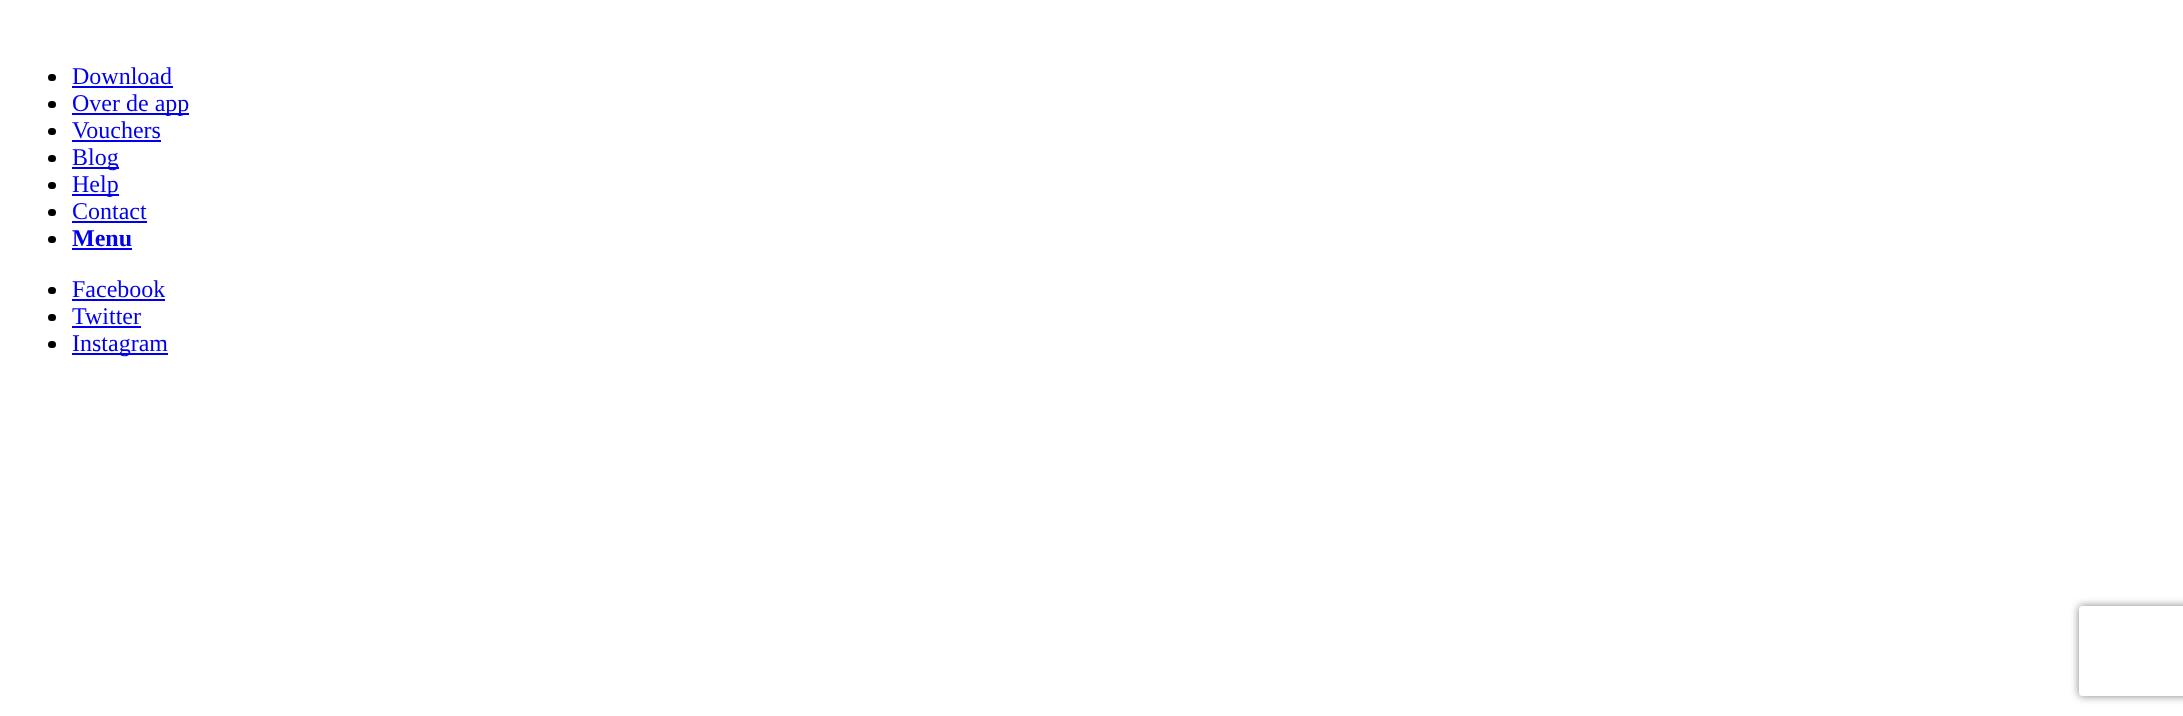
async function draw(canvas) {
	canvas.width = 2183;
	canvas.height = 716;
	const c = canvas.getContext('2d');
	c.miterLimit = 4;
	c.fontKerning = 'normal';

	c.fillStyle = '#fff';
	c.fillRect(0, 0, 2183, 716);
	c.fillStyle = '#000';
	c.beginPath();
	c.roundRect(48, 74, 8, 7, 3.5);
	c.fill();
	c.font = '24px Liberation Serif';
	c.fillStyle = '#00e';
	c.fillText('Download', 72, 84);
	c.fillRect(72, 86, 101, 2);
	c.fillStyle = '#000';
	c.beginPath();
	c.roundRect(48, 101, 8, 7, 3.5);
	c.fill();
	c.fillStyle = '#00e';
	c.fillRect(72, 113, 117, 2);
	c.fillText('Over de app', 72, 111);
	c.fillStyle = '#000';
	c.beginPath();
	c.roundRect(48, 128, 8, 7, 3.5);
	c.fill();
	c.fillStyle = '#00e';
	c.fillText('Vouchers', 72, 138);
	c.fillRect(72, 140, 89, 2);
	c.fillStyle = '#000';
	c.beginPath();
	c.roundRect(48, 155, 8, 7, 3.5);
	c.fill();
	c.fillStyle = '#00e';
	c.fillRect(72, 167, 47, 2);
	c.fillText('Blog', 72, 165);
	c.fillStyle = '#000';
	c.beginPath();
	c.roundRect(48, 182, 8, 7, 3.5);
	c.fill();
	c.fillStyle = '#00e';
	c.fillRect(72, 194, 47, 2);
	c.fillText('Help', 72, 192);
	c.fillStyle = '#000';
	c.beginPath();
	c.roundRect(48, 209, 8, 7, 3.5);
	c.fill();
	c.fillStyle = '#00e';
	c.fillText('Contact', 72, 219);
	c.fillRect(72, 221, 75, 2);
	c.fillStyle = '#000';
	c.beginPath();
	c.roundRect(48, 236, 8, 7, 3.5);
	c.fill();
	c.font = 'bold 24px Liberation Serif';
	c.fillStyle = '#00e';
	c.fillText('Menu', 72, 246);
	c.fillRect(72, 248, 60, 2);
	c.fillStyle = '#000';
	c.beginPath();
	c.roundRect(48, 287, 8, 7, 3.5);
	c.fill();
	c.font = '24px Liberation Serif';
	c.fillStyle = '#00e';
	c.fillText('Facebook', 72, 297);
	c.fillRect(72, 299, 93, 2);
	c.fillStyle = '#000';
	c.beginPath();
	c.roundRect(48, 314, 8, 7, 3.5);
	c.fill();
	c.fillStyle = '#00e';
	c.fillText('Twitter', 72, 324);
	c.fillRect(72, 326, 69, 2);
	c.fillStyle = '#000';
	c.beginPath();
	c.roundRect(48, 341, 8, 7, 3.5);
	c.fill();
	c.fillStyle = '#00e';
	c.fillRect(72, 353, 96, 2);
	c.fillText('Instagram', 72, 351);
	c.save();
	c.beginPath();
	c.moveTo(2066, 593);
	c.lineTo(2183, 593);
	c.lineTo(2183, 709);
	c.lineTo(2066, 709);
	c.closePath();
	c.moveTo(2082, 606);
	c.lineTo(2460, 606);
	c.bezierCurveTo(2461.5, 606, 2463, 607.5, 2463, 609);
	c.lineTo(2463, 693);
	c.bezierCurveTo(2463, 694.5, 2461.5, 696, 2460, 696);
	c.lineTo(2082, 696);
	c.bezierCurveTo(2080.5, 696, 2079, 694.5, 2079, 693);
	c.lineTo(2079, 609);
	c.bezierCurveTo(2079, 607.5, 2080.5, 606, 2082, 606);
	c.closePath();
	c.clip('evenodd');
	c.fillStyle = '#808080';
	c.filter = 'blur(4px)';
	c.beginPath();
	c.roundRect(2079, 606, 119, 90, 3);
	c.fill();
	c.filter = 'none';
	c.restore();
}

draw(document.querySelector('canvas'));
